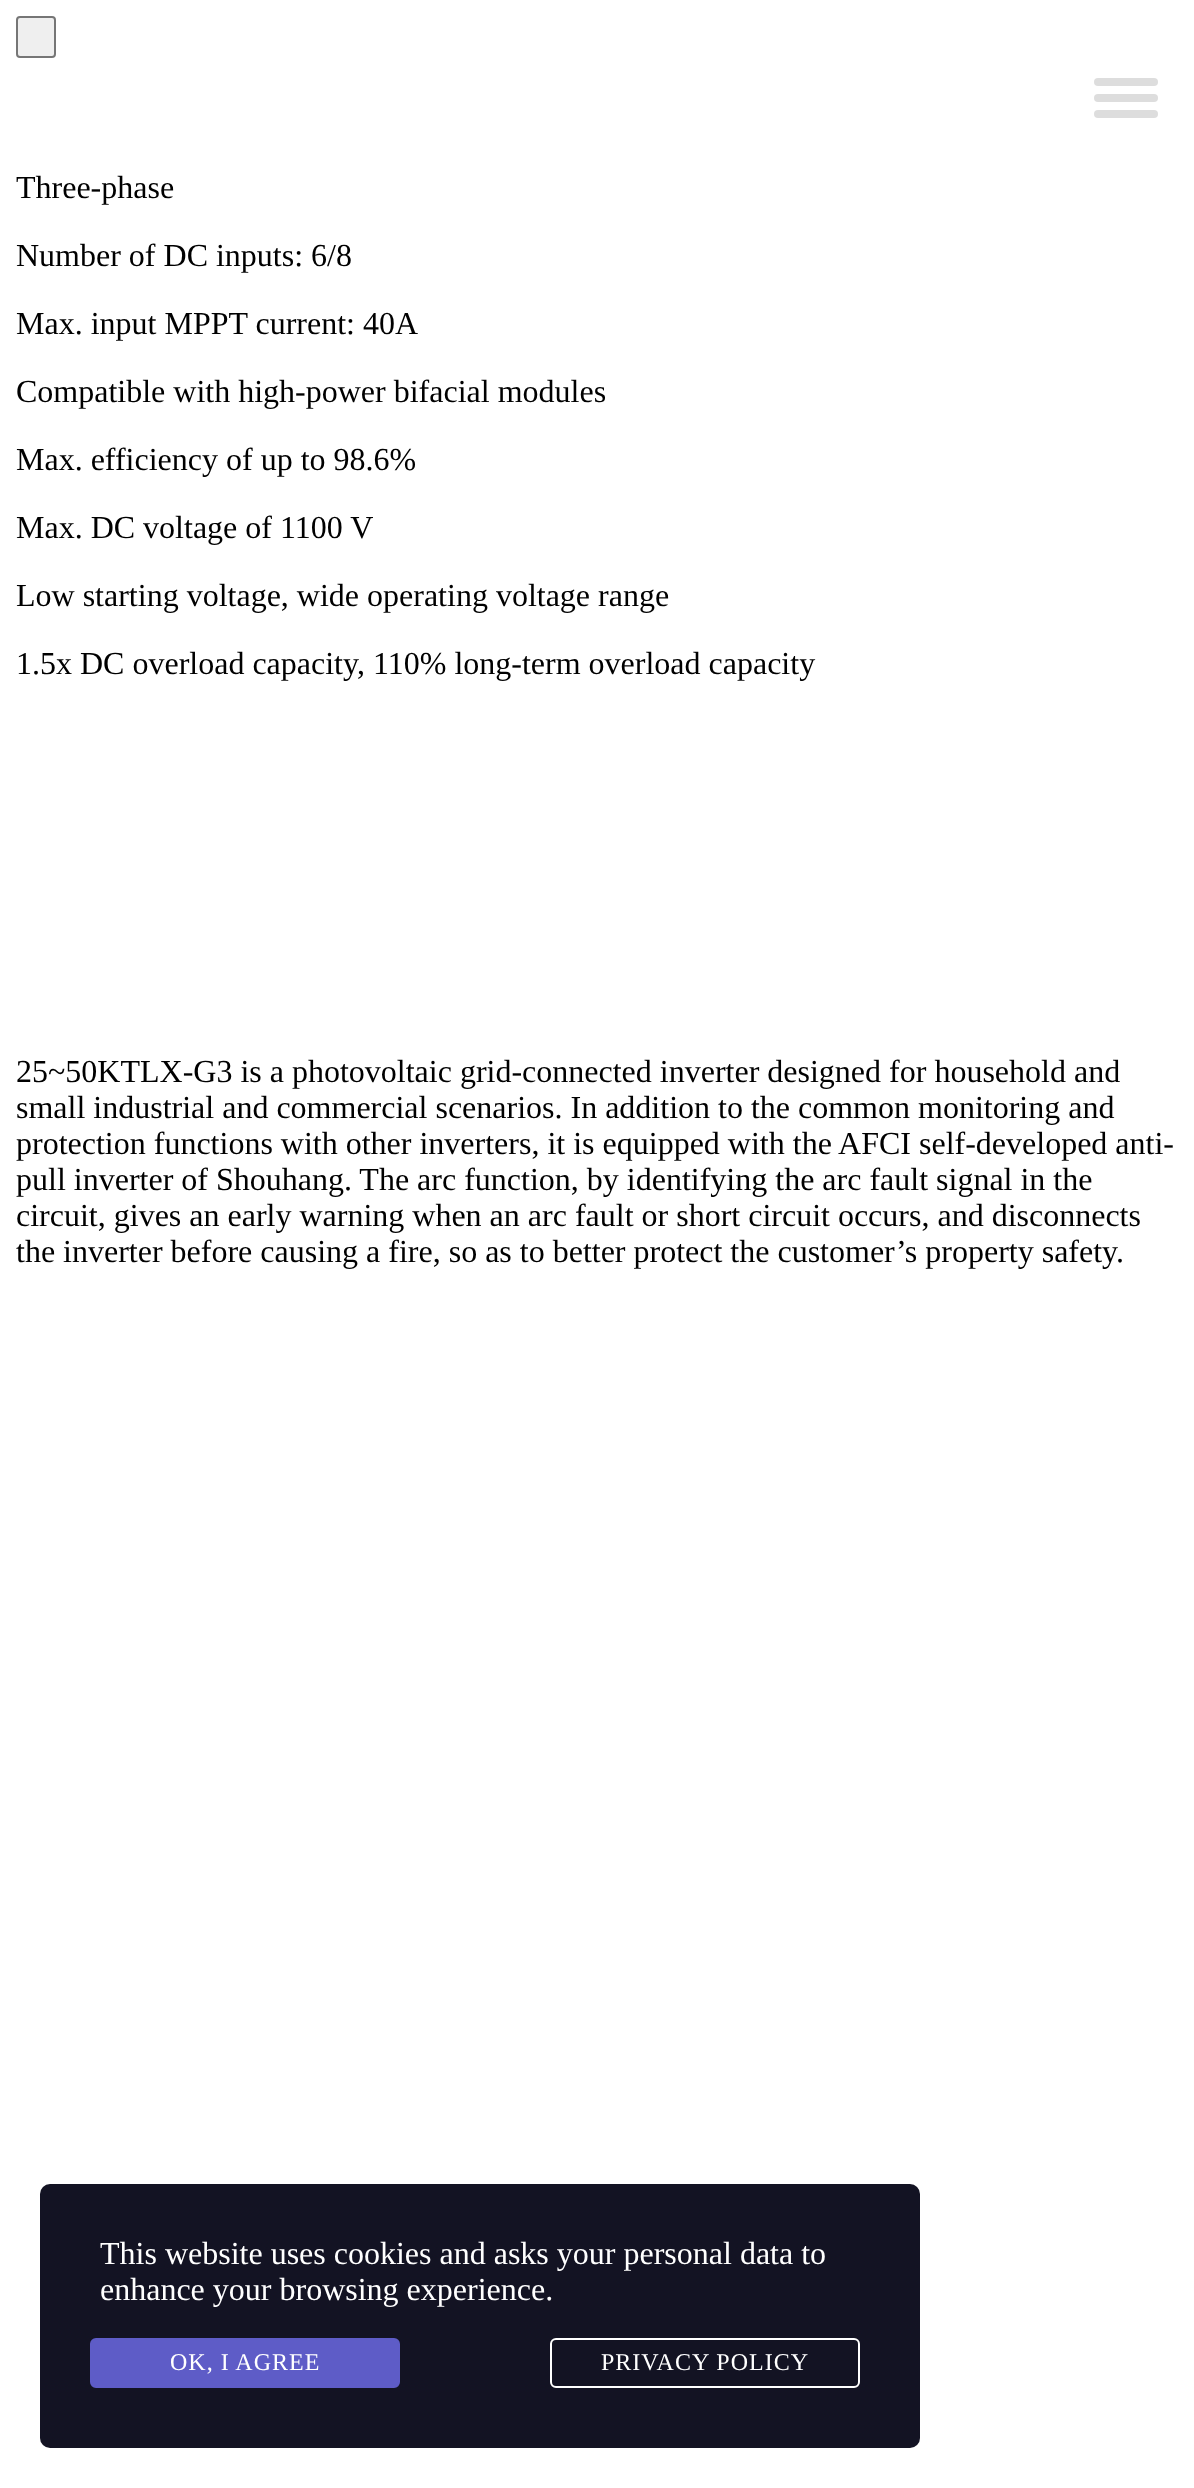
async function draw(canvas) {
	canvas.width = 1194;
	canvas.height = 2488;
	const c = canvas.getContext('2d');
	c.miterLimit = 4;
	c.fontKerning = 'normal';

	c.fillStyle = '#fff';
	c.fillRect(0, 0, 1194, 2488);
	c.fillStyle = '#efefef';
	c.beginPath();
	c.roundRect(17, 17, 38, 40, 3);
	c.fill();
	c.strokeStyle = '#767676';
	c.lineWidth = 2;
	c.stroke();
	c.fillStyle = '#ddd';
	c.beginPath();
	c.roundRect(1094, 78, 64, 8, 4);
	c.fill();
	c.beginPath();
	c.roundRect(1094, 94, 64, 8, 4);
	c.fill();
	c.beginPath();
	c.roundRect(1094, 110, 64, 8, 4);
	c.fill();
	c.font = '32px Liberation Serif';
	c.fillStyle = '#000';
	for (const [text, x, y] of [
		['Three-phase', 16, 198],
		['Number of DC inputs: 6/8', 16, 266],
		['Max. input MPPT current: 40A', 16, 334],
		['Compatible with high-power bifacial modules', 16, 402],
		['Max. efficiency of up to 98.6%', 16, 470],
		['Max. DC voltage of 1100 V', 16, 538],
		['Low starting voltage, wide operating voltage range', 16, 606],
		['1.5x DC overload capacity, 110% long-term overload capacity', 16, 674],
		['25~50KTLX-G3 is a photovoltaic grid-connected inverter designed for household and', 16, 1082],
		['small industrial and commercial scenarios. In addition to the common monitoring and', 16, 1118],
		['protection functions with other inverters, it is equipped with the AFCI self-developed anti-', 16, 1154],
		['pull inverter of Shouhang. The arc function, by identifying the arc fault signal in the', 16, 1190],
		['circuit, gives an early warning when an arc fault or short circuit occurs, and disconnects', 16, 1226],
		['the inverter before causing a fire, so as to better protect the customer’s property safety.', 16, 1262],
	]) {
		c.fillText(text, x, y);
	}
	c.fillStyle = '#131323';
	c.beginPath();
	c.roundRect(40, 2184, 880, 264, 10);
	c.fill();
	c.fillStyle = '#fff';
	c.fillText('This website uses cookies and asks your personal data to', 100, 2264);
	c.fillText('enhance your browsing experience.', 100, 2300);
	c.fillStyle = '#5e5cc7';
	c.beginPath();
	c.roundRect(91, 2339, 308, 48, 5);
	c.fill();
	c.strokeStyle = '#5e5cc7';
	c.stroke();
	c.letterSpacing = '1px';
	c.font = '24px Liberation Serif';
	c.fillStyle = '#fff';
	c.fillText('OK, I AGREE', 170, 2370);
	c.beginPath();
	c.roundRect(551, 2339, 308, 48, 5);
	c.strokeStyle = '#fff';
	c.stroke();
	c.fillText('PRIVACY POLICY', 601, 2370);
}

draw(document.querySelector('canvas'));
